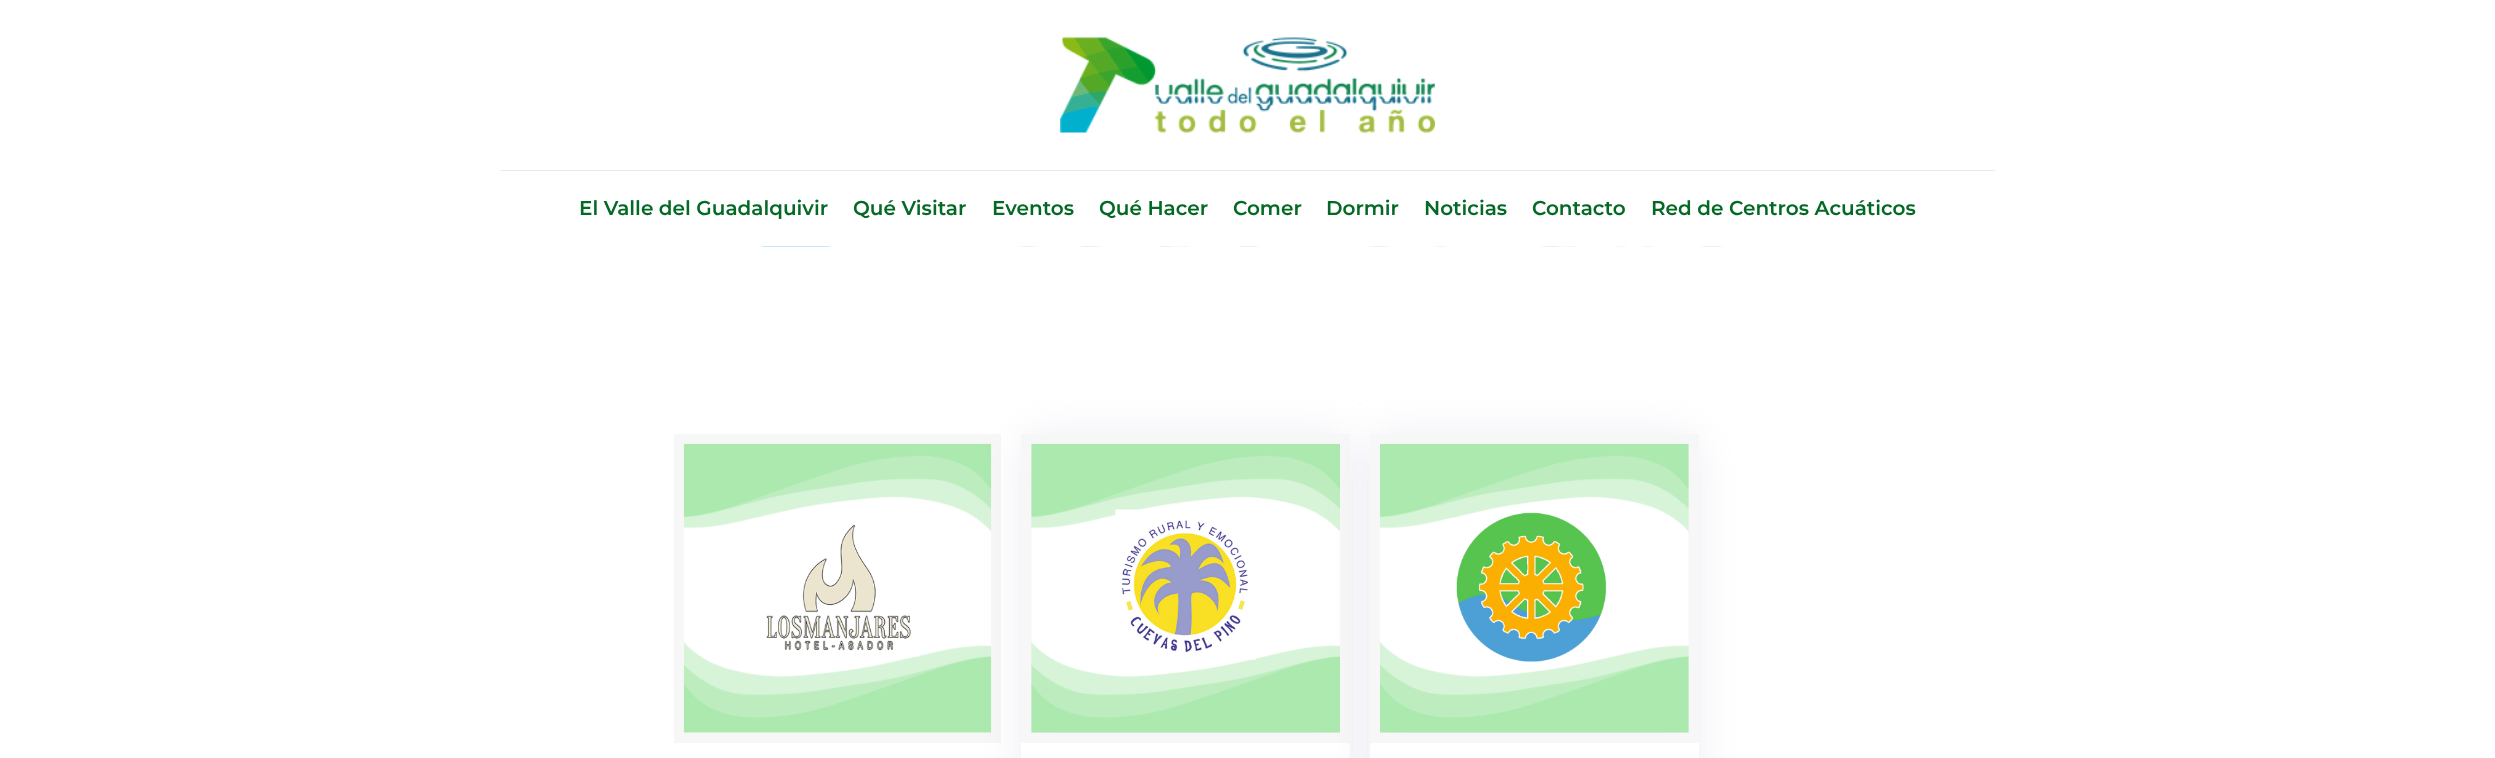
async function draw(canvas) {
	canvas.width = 2495;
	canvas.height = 758;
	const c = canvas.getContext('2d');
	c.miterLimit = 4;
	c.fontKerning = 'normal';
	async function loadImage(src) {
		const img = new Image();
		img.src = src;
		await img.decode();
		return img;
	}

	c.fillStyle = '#fff';
	c.fillRect(0, 0, 2495, 758);
	c.drawImage(await loadImage('img1.png'), 761, 246, 963, 1);
	c.fillStyle = '#ebebeb';
	c.fillRect(500, 170, 1495, 1);
	c.drawImage(await loadImage('img2.png'), 1060, 37, 375, 96);
	c.font = '600 20px Montserrat';
	c.fillStyle = '#046924';
	for (const [text, x, y] of [
		['El Valle del Guadalquivir', 579, 215],
		['Qué Visitar', 853, 215],
		['Eventos', 992, 215],
		['Qué Hacer', 1099, 215],
		['Comer', 1233, 215],
		['Dormir', 1326, 215],
		['Noticias', 1424, 215],
		['Contacto', 1532, 215],
		['Red de Centros Acuáticos', 1651, 215],
	]) {
		c.fillText(text, x, y);
	}
	c.strokeStyle = '#f7f7f7';
	c.lineWidth = 10;
	c.strokeRect(679, 439, 317, 299);
	c.drawImage(await loadImage('img3.png'), 683, 443, 309, 290);
	c.fillStyle = '#c8c4db4d';
	c.filter = 'blur(19px)';
	c.beginPath();
	c.roundRect(1021, 434, 329, 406, 25);
	c.fill();
	c.filter = 'none';
	c.strokeRect(1026, 439, 319, 299);
	c.drawImage(await loadImage('img4.png'), 1031, 443, 309, 290);
	c.fillStyle = '#fff';
	c.fillRect(1021, 743, 329, 15);
	c.fillStyle = '#c8c4db4d';
	c.filter = 'blur(19px)';
	c.beginPath();
	c.roundRect(1370, 434, 329, 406, 25);
	c.fill();
	c.filter = 'none';
	c.strokeRect(1375, 439, 319, 299);
	c.drawImage(await loadImage('img5.png'), 1380, 443, 309, 290);
	c.fillStyle = '#fff';
	c.fillRect(1370, 743, 329, 15);
}

draw(document.querySelector('canvas'));
